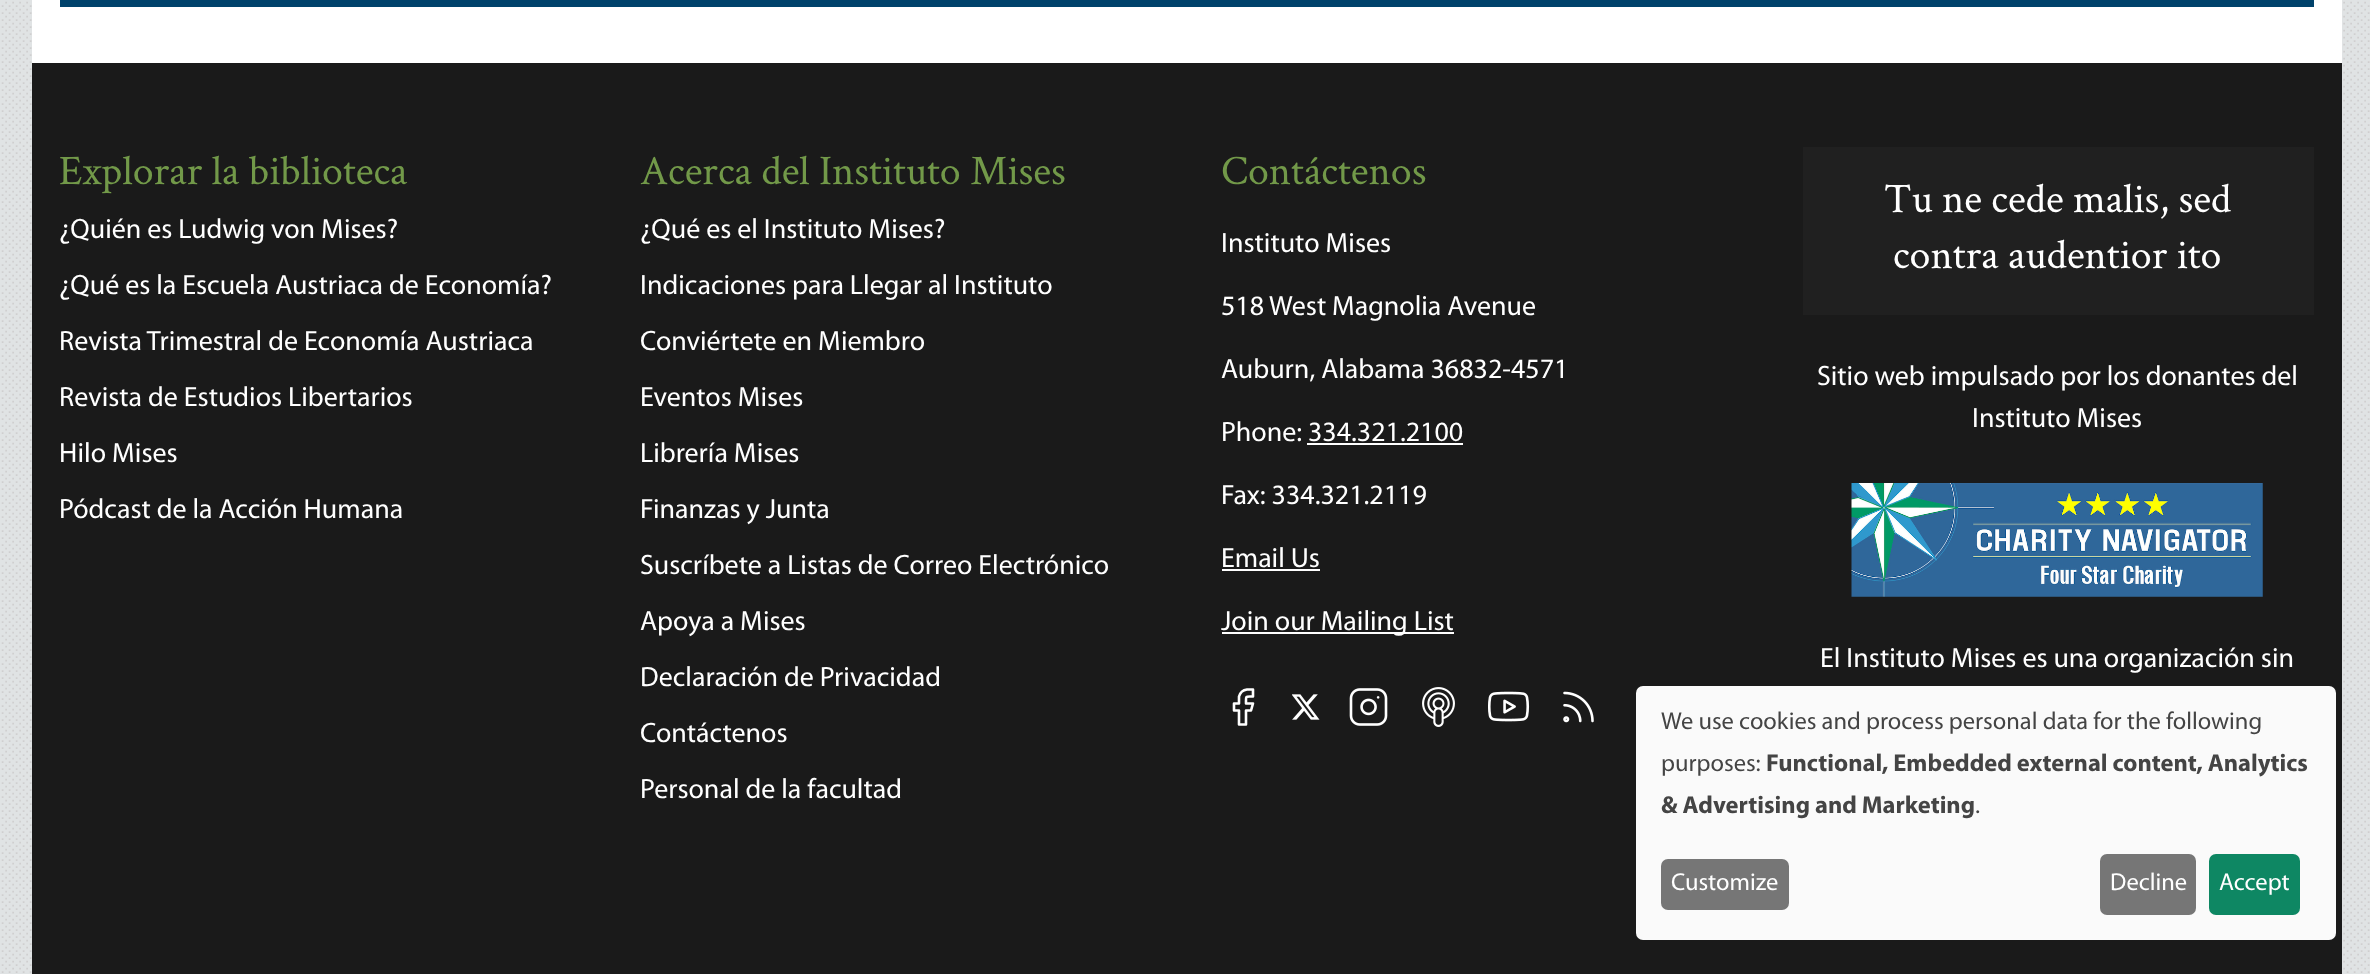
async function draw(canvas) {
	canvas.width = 2370;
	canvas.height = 974;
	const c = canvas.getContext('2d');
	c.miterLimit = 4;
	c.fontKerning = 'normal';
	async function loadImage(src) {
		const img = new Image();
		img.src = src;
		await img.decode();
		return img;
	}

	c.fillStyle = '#e0e3e4';
	c.fillRect(0, 0, 2370, 974);
	c.drawImage(await loadImage('img1.png'), 1, 1, 2369, 972);
	for (const [x, y, w, h, color] of [
		[32, 0, 2310, 63, '#fff'],
		[60, 0, 2254, 7, '#00426b'],
		[32, 63, 2310, 911, '#1a1a1a'],
	]) {
		c.fillStyle = color;
		c.fillRect(x, y, w, h);
	}
	c.font = '42px Crimson Text';
	c.fillStyle = '#729949';
	c.fillText('Explorar la biblioteca', 59, 184);
	c.font = '28px Myriad';
	c.fillStyle = '#fff';
	for (const [text, x, y] of [
		['¿Quién es Ludwig von Mises?', 59, 238],
		['¿Qué es la Escuela Austriaca de Economía?', 59, 294],
		['Revista Trimestral de Economía Austriaca', 59, 350],
		['Revista de Estudios Libertarios', 59, 406],
		['Hilo Mises', 59, 462],
		['Pódcast de la Acción Humana', 59, 518],
	]) {
		c.fillText(text, x, y);
	}
	c.font = '42px Crimson Text';
	c.fillStyle = '#729949';
	c.fillText('Acerca del Instituto Mises', 640, 184);
	c.font = '28px Myriad';
	c.fillStyle = '#fff';
	for (const [text, x, y] of [
		['¿Qué es el Instituto Mises?', 640, 238],
		['Indicaciones para Llegar al Instituto', 640, 294],
		['Conviértete en Miembro', 640, 350],
		['Eventos Mises', 640, 406],
		['Librería Mises', 640, 462],
		['Finanzas y Junta', 640, 518],
		['Suscríbete a Listas de Correo Electrónico', 640, 574],
		['Apoya a Mises', 640, 630],
		['Declaración de Privacidad', 640, 686],
		['Contáctenos', 640, 742],
		['Personal de la facultad', 640, 798],
	]) {
		c.fillText(text, x, y);
	}
	c.font = '42px Crimson Text';
	c.fillStyle = '#729949';
	c.fillText('Contáctenos', 1221, 184);
	c.font = '28px Myriad';
	c.fillStyle = '#fff';
	for (const [text, x, y] of [
		['Instituto Mises', 1221, 252],
		['518 West Magnolia Avenue', 1221, 315],
		['Auburn, Alabama 36832-4571', 1221, 378],
		['Phone: 334.321.2100', 1221, 441],
	]) {
		c.fillText(text, x, y);
	}
	c.fillRect(1307, 443, 156, 2);
	c.fillText('Fax: 334.321.2119', 1221, 504);
	c.fillText('Email Us', 1221, 567);
	c.fillRect(1222, 569, 98, 2);
	c.fillRect(1222, 632, 232, 2);
	c.fillText('Join our Mailing List', 1221, 630);
	c.beginPath();
	c.moveTo(1253, 689.5);
	c.lineTo(1247, 689.5);
	c.bezierCurveTo(1243, 690, 1240, 693, 1239, 696.5);
	c.lineTo(1239, 703.5);
	c.lineTo(1234, 703.5);
	c.lineTo(1234, 710.5);
	c.lineTo(1239, 710.5);
	c.lineTo(1239, 724.5);
	c.lineTo(1246, 724.5);
	c.lineTo(1246, 710.5);
	c.lineTo(1251, 710.5);
	c.lineTo(1253, 703.5);
	c.lineTo(1246, 703.5);
	c.bezierCurveTo(1246, 695.5, 1245, 696.5, 1253, 696.5);
	c.closePath();
	c.strokeStyle = '#fff';
	c.lineWidth = 2.6;
	c.lineCap = 'round';
	c.lineJoin = 'round';
	c.stroke();
	c.drawImage(await loadImage('img2.png'), 1292, 694, 28, 26);
	c.drawImage(await loadImage('img3.png'), 1349, 688, 39, 38);
	c.drawImage(await loadImage('img4.png'), 1422, 687, 33, 40);
	c.drawImage(await loadImage('img5.png'), 1488, 691, 42, 31);
	c.drawImage(await loadImage('img6.png'), 1563, 691, 31, 32);
	c.fillStyle = '#202020';
	c.fillRect(1803, 147, 511, 168);
	c.font = '42px Crimson Text';
	c.fillStyle = '#fff';
	c.fillText('Tu ne cede malis, sed', 1884, 212);
	c.fillText('contra audentior ito', 1893, 268);
	c.font = '28px Myriad';
	c.fillText('Sitio web impulsado por los donantes del', 1817, 385);
	c.fillText('Instituto Mises', 1972, 427);
	c.drawImage(await loadImage('img7.png'), 1851, 483, 412, 114);
	c.fillText('El Instituto Mises es una organización sin', 1820, 667);
	c.fillStyle = '#fafafa';
	c.beginPath();
	c.roundRect(1636, 686, 700, 254, 7);
	c.fill();
	c.font = '24.5px Myriad';
	c.fillStyle = '#444';
	c.fillText('We use cookies and process personal data for the following', 1661, 729);
	c.fillText('purposes:', 1661, 771);
	c.font = 'bold 24.5px Myriad';
	c.fillText('Functional, Embedded external content, Analytics', 1766, 771);
	c.fillText('& Advertising and Marketing', 1661, 813);
	c.font = '24.5px Myriad';
	c.fillText('.', 1975, 813);
	c.fillStyle = '#767676';
	c.beginPath();
	c.roundRect(1661, 859, 128, 51, 7);
	c.fill();
	c.fillStyle = '#fff';
	c.fillText('Customize', 1671, 890);
	c.fillStyle = '#767676';
	c.beginPath();
	c.roundRect(2100, 854, 96, 61, 7);
	c.fill();
	c.fillStyle = '#fff';
	c.fillText('Decline', 2110, 890);
	c.fillStyle = '#0e8763';
	c.beginPath();
	c.roundRect(2209, 854, 91, 61, 7);
	c.fill();
	c.fillStyle = '#fff';
	c.fillText('Accept', 2219, 890);
}

draw(document.querySelector('canvas'));
